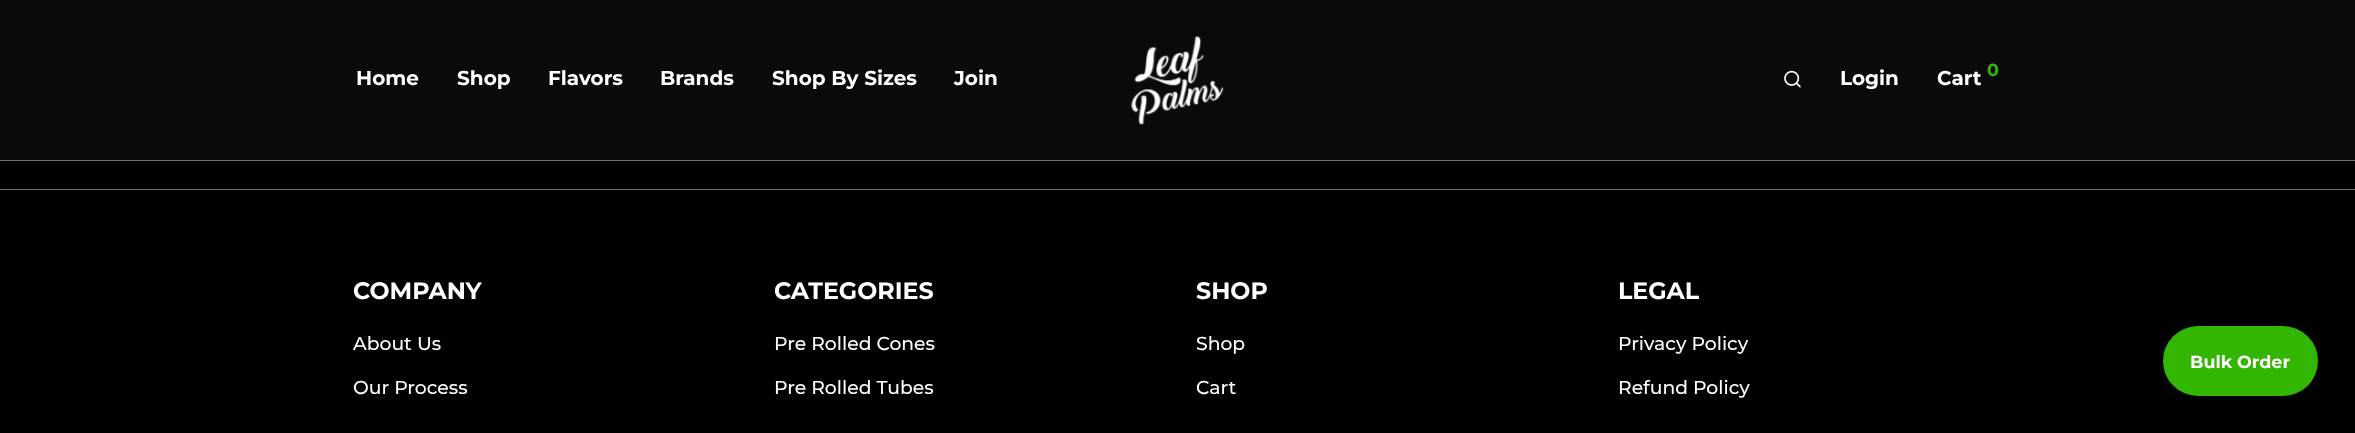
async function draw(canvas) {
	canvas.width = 2355;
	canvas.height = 433;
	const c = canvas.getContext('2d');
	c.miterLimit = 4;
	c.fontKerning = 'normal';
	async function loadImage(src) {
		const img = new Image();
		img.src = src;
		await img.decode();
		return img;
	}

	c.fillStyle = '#000';
	c.fillRect(0, 0, 2355, 433);
	c.fillStyle = '#0a0a0a';
	c.fillRect(0, 0, 2355, 160);
	c.fillStyle = '#6c6c6c';
	c.fillRect(0, 160, 2355, 1);
	c.font = 'bold 20px Montserrat';
	c.fillStyle = '#fff';
	for (const [text, x, y] of [
		['Home', 356, 85],
		['Shop', 457, 85],
		['Flavors', 548, 85],
		['Brands', 660, 85],
		['Shop By Sizes', 772, 85],
		['Join', 954, 85],
	]) {
		c.fillText(text, x, y);
	}
	c.drawImage(await loadImage('img1.png'), 1131, 36, 93, 89);
	c.drawImage(await loadImage('img2.png'), 1784, 70, 17, 18);
	c.fillText('Login', 1840, 85);
	c.fillText('Cart', 1937, 85);
	c.font = 'bold 17.5px Montserrat';
	c.fillStyle = '#33b601';
	c.fillText('0', 1987, 76);
	c.fillStyle = '#6c6c6c';
	c.fillRect(0, 189, 2355, 1);
	c.font = 'bold 23.75px Montserrat';
	c.fillStyle = '#fff';
	c.fillText('COMPANY', 353, 299);
	c.font = '500 18.75px Montserrat';
	c.fillText('About Us', 353, 350);
	c.fillText('Our Process', 353, 394);
	c.font = 'bold 23.75px Montserrat';
	c.fillText('CATEGORIES', 774, 299);
	c.font = '500 18.75px Montserrat';
	c.fillText('Pre Rolled Cones', 774, 350);
	c.fillText('Pre Rolled Tubes', 774, 394);
	c.font = 'bold 23.75px Montserrat';
	c.fillText('SHOP', 1196, 299);
	c.font = '500 18.75px Montserrat';
	c.fillText('Shop', 1196, 350);
	c.fillText('Cart', 1196, 394);
	c.font = 'bold 23.75px Montserrat';
	c.fillText('LEGAL', 1618, 299);
	c.font = '500 18.75px Montserrat';
	c.fillText('Privacy Policy', 1618, 350);
	c.fillText('Refund Policy', 1618, 394);
	c.fillStyle = '#33b601';
	c.beginPath();
	c.roundRect(2163, 326, 155, 70, 35);
	c.fill();
	c.font = 'bold 17.5px Montserrat';
	c.fillStyle = '#fff';
	c.fillText('Bulk Order', 2190, 368);
}

draw(document.querySelector('canvas'));
